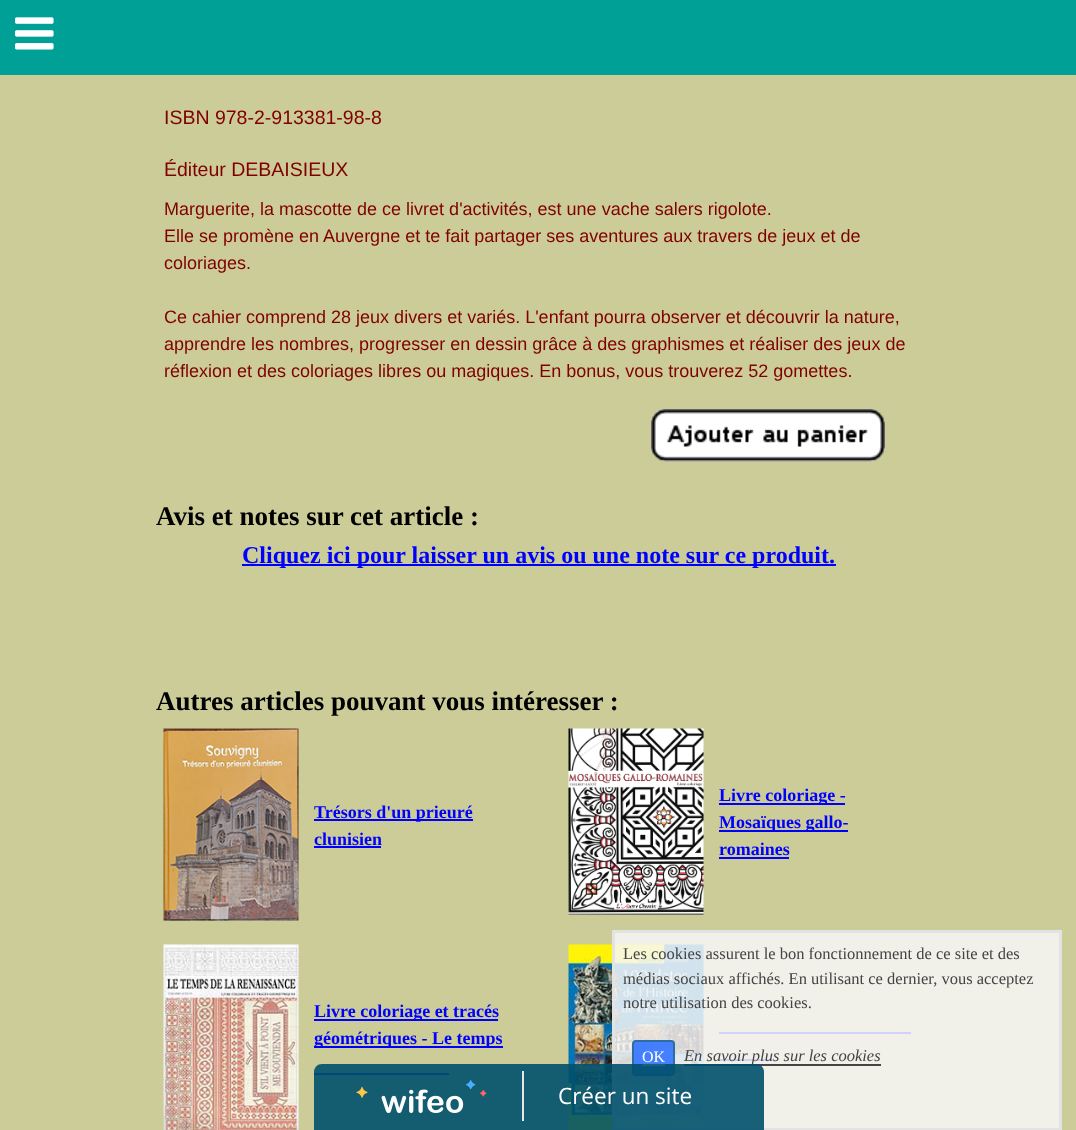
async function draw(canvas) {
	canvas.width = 1076;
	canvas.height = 1130;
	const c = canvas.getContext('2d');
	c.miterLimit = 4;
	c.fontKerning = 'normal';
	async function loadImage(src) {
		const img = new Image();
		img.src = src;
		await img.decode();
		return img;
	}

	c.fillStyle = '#cc9';
	c.fillRect(0, 0, 1076, 1130);
	c.fillStyle = '#00a096';
	c.fillRect(0, 0, 1076, 75);
	c.drawImage(await loadImage('img1.png'), 15, 17, 39, 33);
	c.font = '19.5px Liberation Sans';
	c.fillStyle = '#800000';
	c.fillText('ISBN 978-2-913381-98-8', 164, 124);
	c.fillText('Éditeur DEBAISIEUX', 164, 176);
	c.font = '18px Liberation Sans';
	for (const [text, x, y] of [
		['Marguerite, la mascotte de ce livret d\'activités, est une vache salers rigolote.', 164, 215],
		['Elle se promène en Auvergne et te fait partager ses aventures aux travers de jeux et de', 164, 242],
		['coloriages.', 164, 269],
		['Ce cahier comprend 28 jeux divers et variés. L\'enfant pourra observer et découvrir la nature,', 164, 323],
		['apprendre les nombres, progresser en dessin grâce à des graphismes et réaliser des jeux de', 164, 350],
		['réflexion et des coloriages libres ou magiques. En bonus, vous trouverez 52 gomettes.', 164, 377],
	]) {
		c.fillText(text, x, y);
	}
	c.drawImage(await loadImage('img2.png'), 651, 409, 234, 53);
	c.font = 'bold 27px Liberation Serif';
	c.fillStyle = '#000';
	c.fillText('Avis et notes sur cet article :', 156, 525);
	c.fillStyle = '#00f';
	c.fillRect(242, 564, 594, 2);
	c.font = 'bold 24px Liberation Serif';
	c.fillText('Cliquez ici pour laisser un avis ou une note sur ce produit.', 242, 563);
	c.font = 'bold 27px Liberation Serif';
	c.fillStyle = '#000';
	c.fillText('Autres articles pouvant vous intéresser :', 156, 710);
	c.drawImage(await loadImage('img3.png'), 163, 728, 136, 193);
	c.fillStyle = '#00f';
	c.fillRect(314, 819, 159, 2);
	c.font = 'bold 18px Liberation Serif';
	c.fillText('Trésors d\'un prieuré', 314, 818);
	c.fillText('clunisien', 314, 845);
	c.fillRect(314, 846, 67, 2);
	c.drawImage(await loadImage('img4.png'), 568, 728, 136, 187);
	c.fillRect(719, 803, 126, 2);
	c.fillText('Livre coloriage -', 719, 801);
	c.fillRect(719, 830, 129, 2);
	c.fillText('Mosaïques gallo-', 719, 828);
	c.fillText('romaines', 719, 855);
	c.fillRect(719, 857, 70, 2);
	c.drawImage(await loadImage('img5.png'), 163, 944, 136, 186);
	c.fillRect(314, 1019, 184, 2);
	c.fillText('Livre coloriage et tracés', 314, 1017);
	c.fillRect(314, 1046, 189, 2);
	c.fillText('géométriques - Le temps', 314, 1044);
	c.fillRect(314, 1073, 135, 2);
	c.drawImage(await loadImage('img6.png'), 568, 944, 136, 186);
	c.fillRect(719, 1032, 192, 2);
	c.fillRect(719, 1059, 54, 2);
	c.fillStyle = '#f7f7f7d9';
	c.beginPath();
	c.rect(613.5, 931.5, 447, 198);
	c.fill();
	c.strokeStyle = '#e3e3e3';
	c.lineWidth = 3;
	c.stroke();
	c.font = '16.5px Liberation Serif';
	c.fillStyle = '#444';
	for (const [text, x, y] of [
		['Les cookies assurent le bon fonctionnement de ce site et des', 623, 959],
		['médias sociaux affichés. En utilisant ce dernier, vous acceptez', 623, 984],
		['notre utilisation des cookies.', 623, 1008],
	]) {
		c.fillText(text, x, y);
	}
	c.fillStyle = '#447fff';
	c.beginPath();
	c.roundRect(633, 1041, 41, 34, 3);
	c.fill();
	c.strokeStyle = '#2e6da4';
	c.lineWidth = 2;
	c.stroke();
	c.font = '16px Liberation Serif';
	c.fillStyle = '#fff';
	c.fillText('OK', 642, 1062);
	c.fillRect(642, 1064, 23, 2);
	c.fillStyle = '#444';
	c.fillRect(684, 1064, 197, 2);
	c.font = 'italic 16.5px Liberation Serif';
	c.fillText('En savoir plus sur les cookies', 684, 1061);
	c.fillStyle = '#00506be6';
	c.beginPath();
	c.moveTo(322, 1064);
	c.lineTo(756, 1064);
	c.bezierCurveTo(760.5, 1064, 764, 1067.5, 764, 1072);
	c.lineTo(764, 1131);
	c.lineTo(314, 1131);
	c.lineTo(314, 1072);
	c.bezierCurveTo(314, 1067.5, 317.5, 1064, 322, 1064);
	c.closePath();
	c.fill();
	c.fillStyle = '#e7e7e7';
	c.fillRect(522, 1071, 2, 50);
	c.drawImage(await loadImage('img7.png'), 356, 1080, 131, 33);
	c.font = '22.5px Open Sans';
	c.fillStyle = '#fff';
	c.fillText('Créer un site', 558, 1104);
}

draw(document.querySelector('canvas'));
